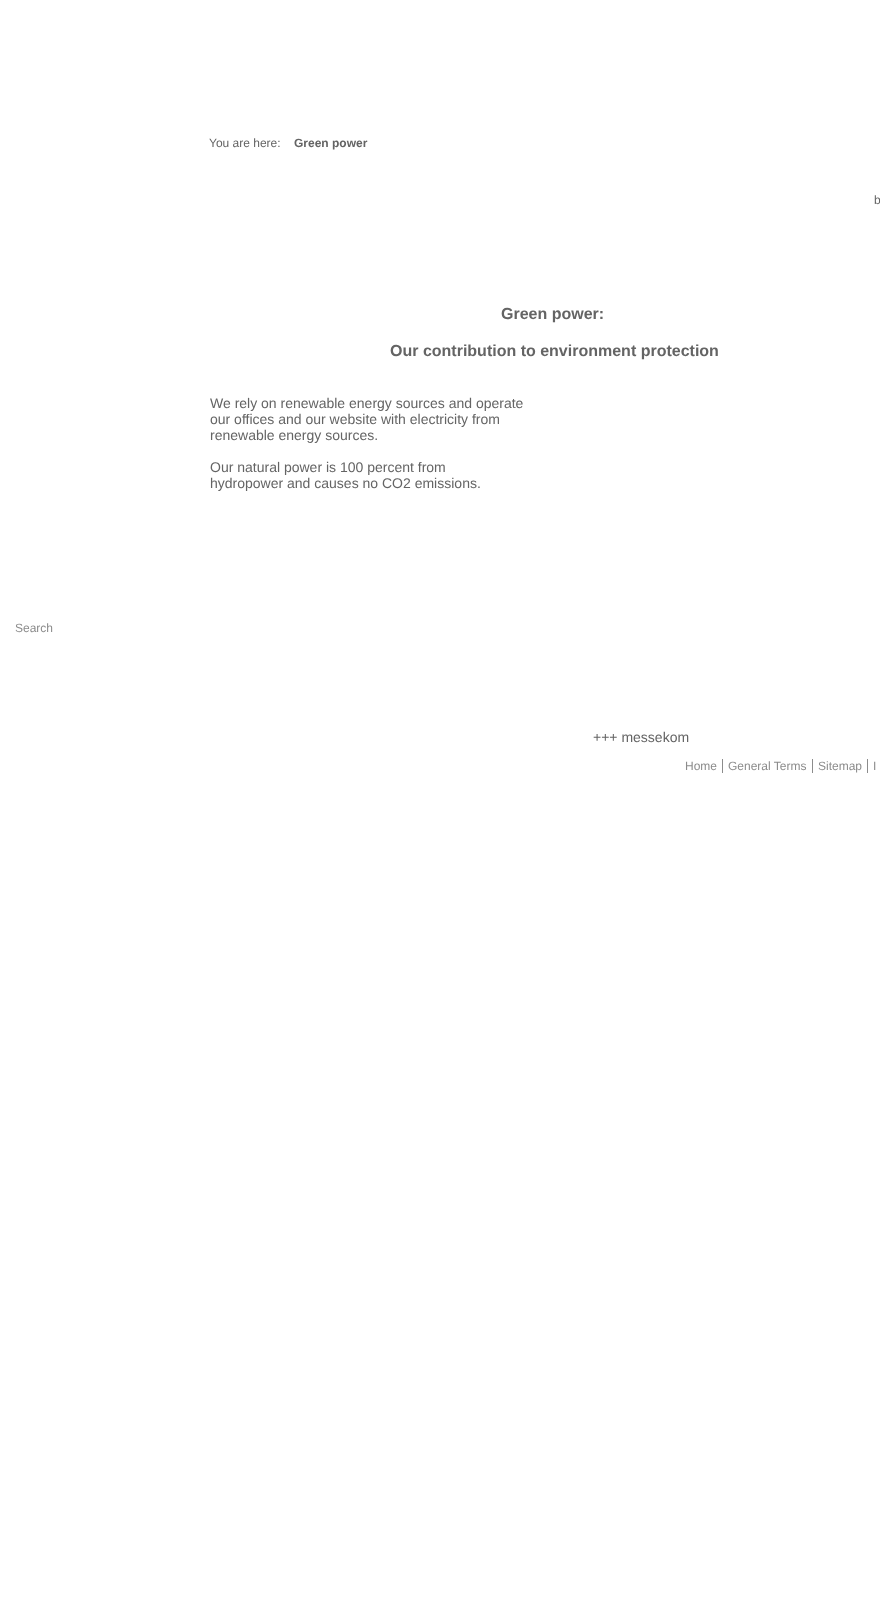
async function draw(canvas) {
	canvas.width = 880;
	canvas.height = 1616;
	const c = canvas.getContext('2d');
	c.miterLimit = 4;
	c.fontKerning = 'normal';

	c.fillStyle = '#fff';
	c.fillRect(0, 0, 880, 1616);
	c.font = '12px Liberation Sans';
	c.fillStyle = '#8c8c8c';
	c.fillText('Search', 15, 632);
	c.fillStyle = '#646464';
	c.fillText('You are here:', 209, 147);
	c.font = 'bold 12px Liberation Sans';
	c.fillText('Green power', 294, 147);
	c.font = '12px Liberation Sans';
	c.fillText('b', 874, 204);
	c.font = 'bold 16px Liberation Sans';
	c.fillText('Green power:', 501, 319);
	c.fillText('Our contribution to environment protection', 390, 356);
	c.font = '14px Liberation Sans';
	for (const [text, x, y] of [
		['We rely on renewable energy sources and operate', 210, 408],
		['our offices and our website with electricity from', 210, 424],
		['renewable energy sources.', 210, 440],
		['Our natural power is 100 percent from', 210, 472],
		['hydropower and causes no CO2 emissions.', 210, 488],
		['+++ messekom', 593, 742],
	]) {
		c.fillText(text, x, y);
	}
	c.font = '12px Liberation Sans';
	c.fillStyle = '#8c8c8c';
	c.fillText('Home', 685, 770);
	c.fillRect(722, 759, 1, 14);
	c.fillText('General Terms', 728, 770);
	c.fillRect(812, 759, 1, 14);
	c.fillText('Sitemap', 818, 770);
	c.fillRect(867, 759, 1, 14);
	c.fillText('I', 873, 770);
}

draw(document.querySelector('canvas'));
